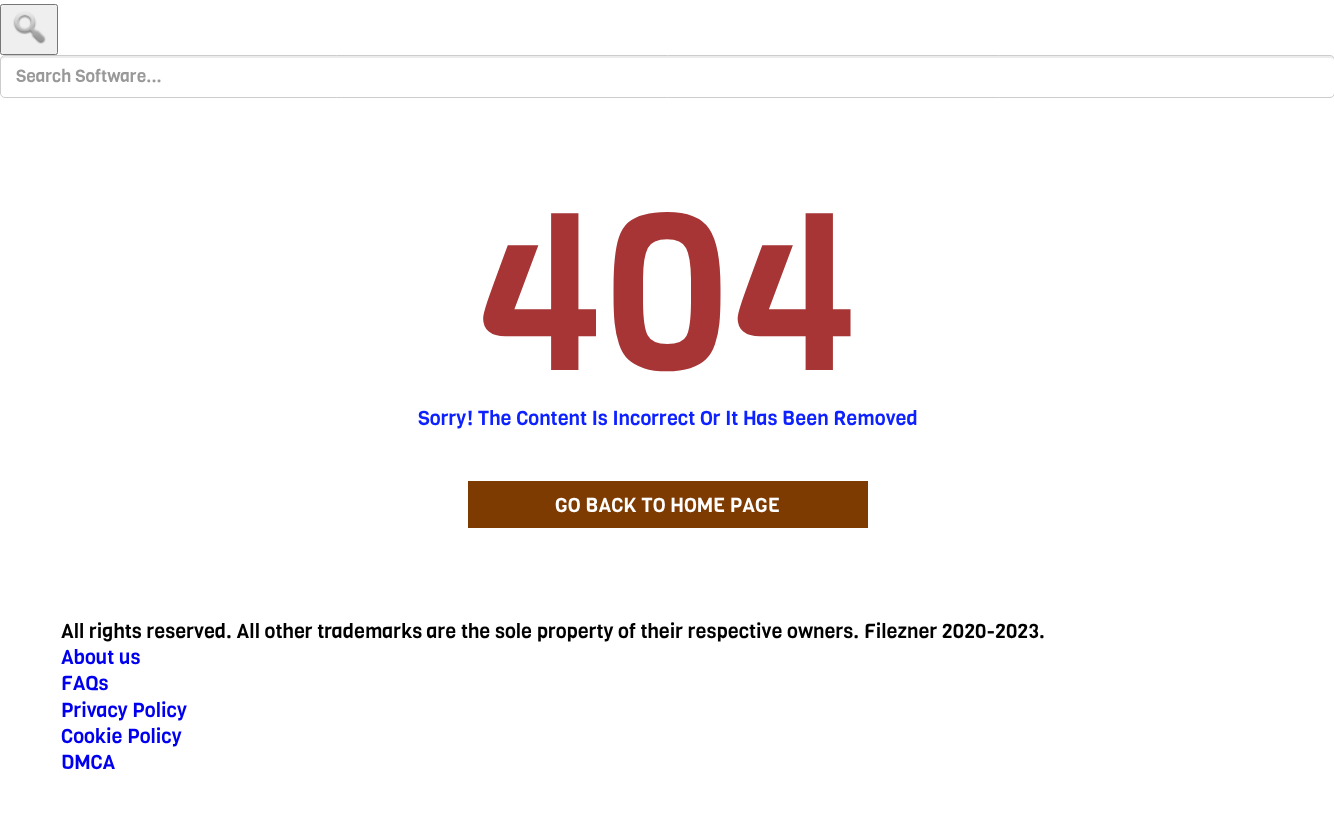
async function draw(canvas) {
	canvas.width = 1334;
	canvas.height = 835;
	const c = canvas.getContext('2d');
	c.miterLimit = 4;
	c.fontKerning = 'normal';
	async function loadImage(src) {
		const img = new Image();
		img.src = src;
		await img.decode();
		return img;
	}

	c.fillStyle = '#fff';
	c.fillRect(0, 0, 1334, 835);
	c.fillStyle = '#efefef';
	c.beginPath();
	c.roundRect(0.5, 4.5, 57, 50, 2);
	c.fill();
	c.strokeStyle = '#767676';
	c.stroke();
	c.drawImage(await loadImage('img1.png'), 13, 11, 33, 33);
	c.fillStyle = '#ececec';
	c.beginPath();
	c.moveTo(5, 58);
	c.lineTo(1330, 58);
	c.bezierCurveTo(1332, 58, 1334, 59, 1334, 61);
	c.lineTo(1334, 60);
	c.bezierCurveTo(1334, 58, 1332, 56, 1330, 56);
	c.lineTo(5, 56);
	c.bezierCurveTo(3, 56, 1, 58, 1, 60);
	c.lineTo(1, 61);
	c.bezierCurveTo(1, 59, 3, 58, 5, 58);
	c.closePath();
	c.fill();
	c.beginPath();
	c.roundRect(0.5, 55.5, 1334, 42, 4.5);
	c.strokeStyle = '#ccc';
	c.stroke();
	c.font = '17.5px Viga';
	c.fillStyle = '#999';
	c.fillText('Search Software...', 16, 82);
	c.font = '220px Viga';
	c.fillStyle = '#a73535';
	c.fillText('404', 475, 370);
	c.font = '20px Viga';
	c.fillStyle = '#0e21ff';
	c.fillText('Sorry! The Content Is Incorrect Or It Has Been Removed', 418, 425);
	c.fillStyle = '#7d3a01';
	c.fillRect(468, 481, 400, 47);
	c.fillStyle = '#fff';
	c.fillText('GO BACK TO HOME PAGE', 555, 512);
	c.fillStyle = '#000';
	c.fillText('All rights reserved. All other trademarks are the sole property of their respective owners. Filezner 2020-2023.', 61, 638);
	c.fillStyle = '#00e';
	for (const [text, x, y] of [
		['About us', 61, 664],
		['FAQs', 61, 690],
		['Privacy Policy', 61, 717],
		['Cookie Policy', 61, 743],
		['DMCA', 61, 769],
	]) {
		c.fillText(text, x, y);
	}
}

draw(document.querySelector('canvas'));
